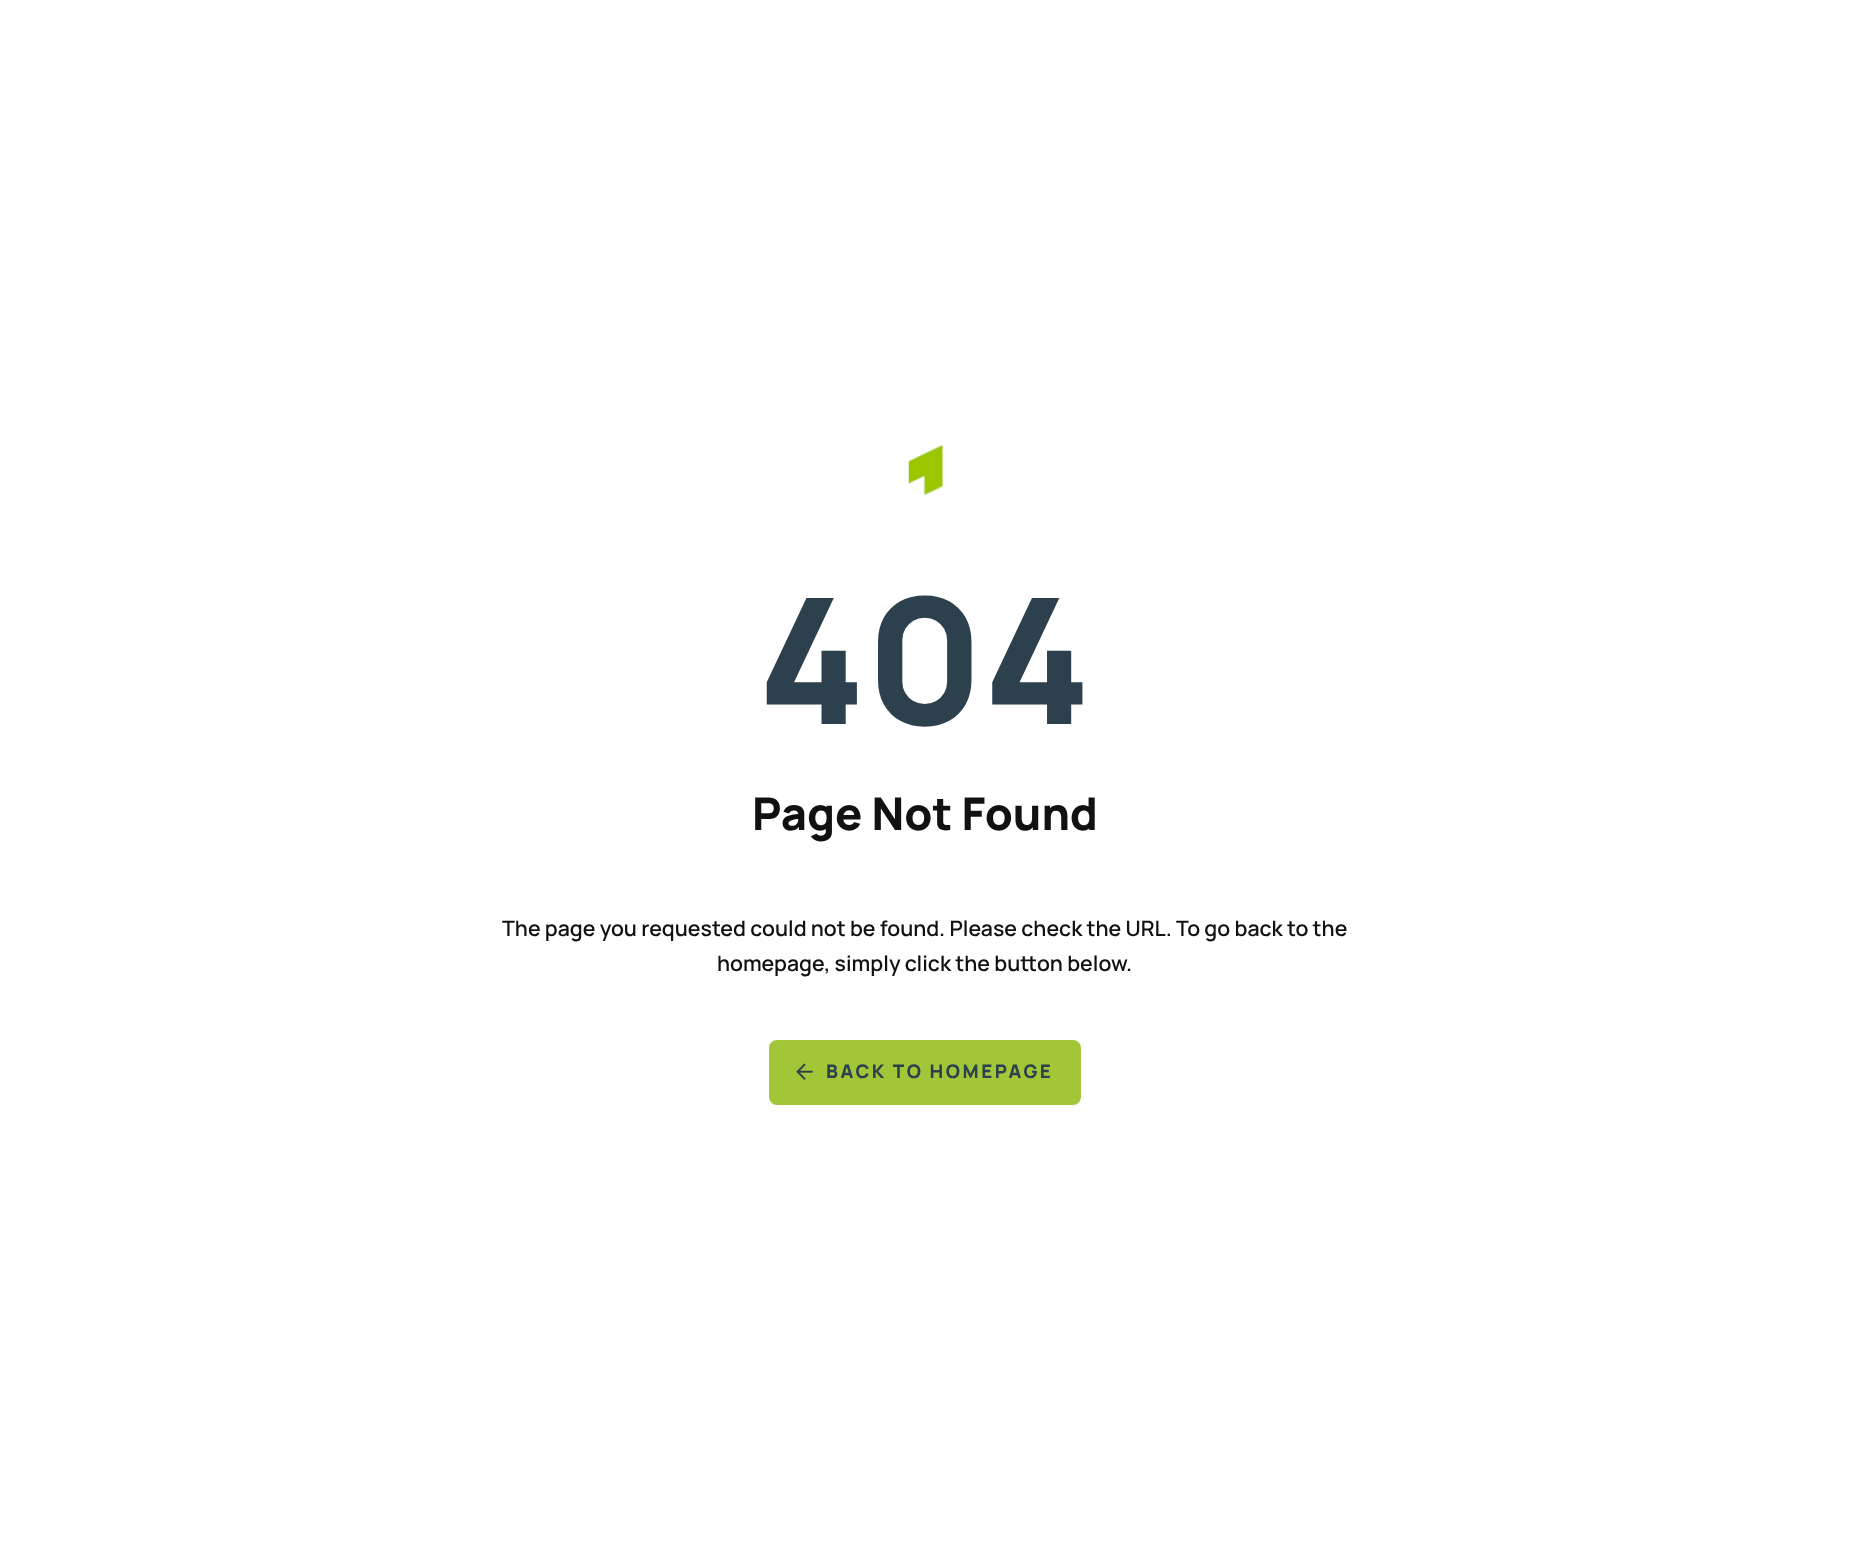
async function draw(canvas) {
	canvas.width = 1849;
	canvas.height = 1549;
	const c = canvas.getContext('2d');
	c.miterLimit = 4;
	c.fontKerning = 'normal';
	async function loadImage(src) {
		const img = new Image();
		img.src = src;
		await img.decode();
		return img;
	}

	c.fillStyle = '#fff';
	c.fillRect(0, 0, 1849, 1549);
	c.drawImage(await loadImage('img1.png'), 908, 445, 35, 50);
	c.font = '800 175px Manrope';
	c.fillStyle = '#2c404d';
	c.fillText('404', 758, 724);
	c.font = '800 45px Manrope';
	c.fillStyle = '#111';
	c.fillText('Page Not Found', 752, 830);
	c.font = '600 21.25px Manrope';
	c.fillText('The page you requested could not be found. Please check the URL. To go back to the', 502, 936);
	c.fillText('homepage, simply click the button below.', 717, 971);
	c.fillStyle = '#a3c639';
	c.beginPath();
	c.roundRect(770.5, 1041.5, 309, 62, 6.5);
	c.fill();
	c.strokeStyle = '#a3c639';
	c.lineWidth = 3;
	c.stroke();
	c.drawImage(await loadImage('img2.png'), 796, 1063, 17, 17);
	c.letterSpacing = '2.5px';
	c.font = '800 18.75px Manrope';
	c.fillStyle = '#2c404d';
	c.fillText('BACK TO HOMEPAGE', 826, 1078);
}

draw(document.querySelector('canvas'));
